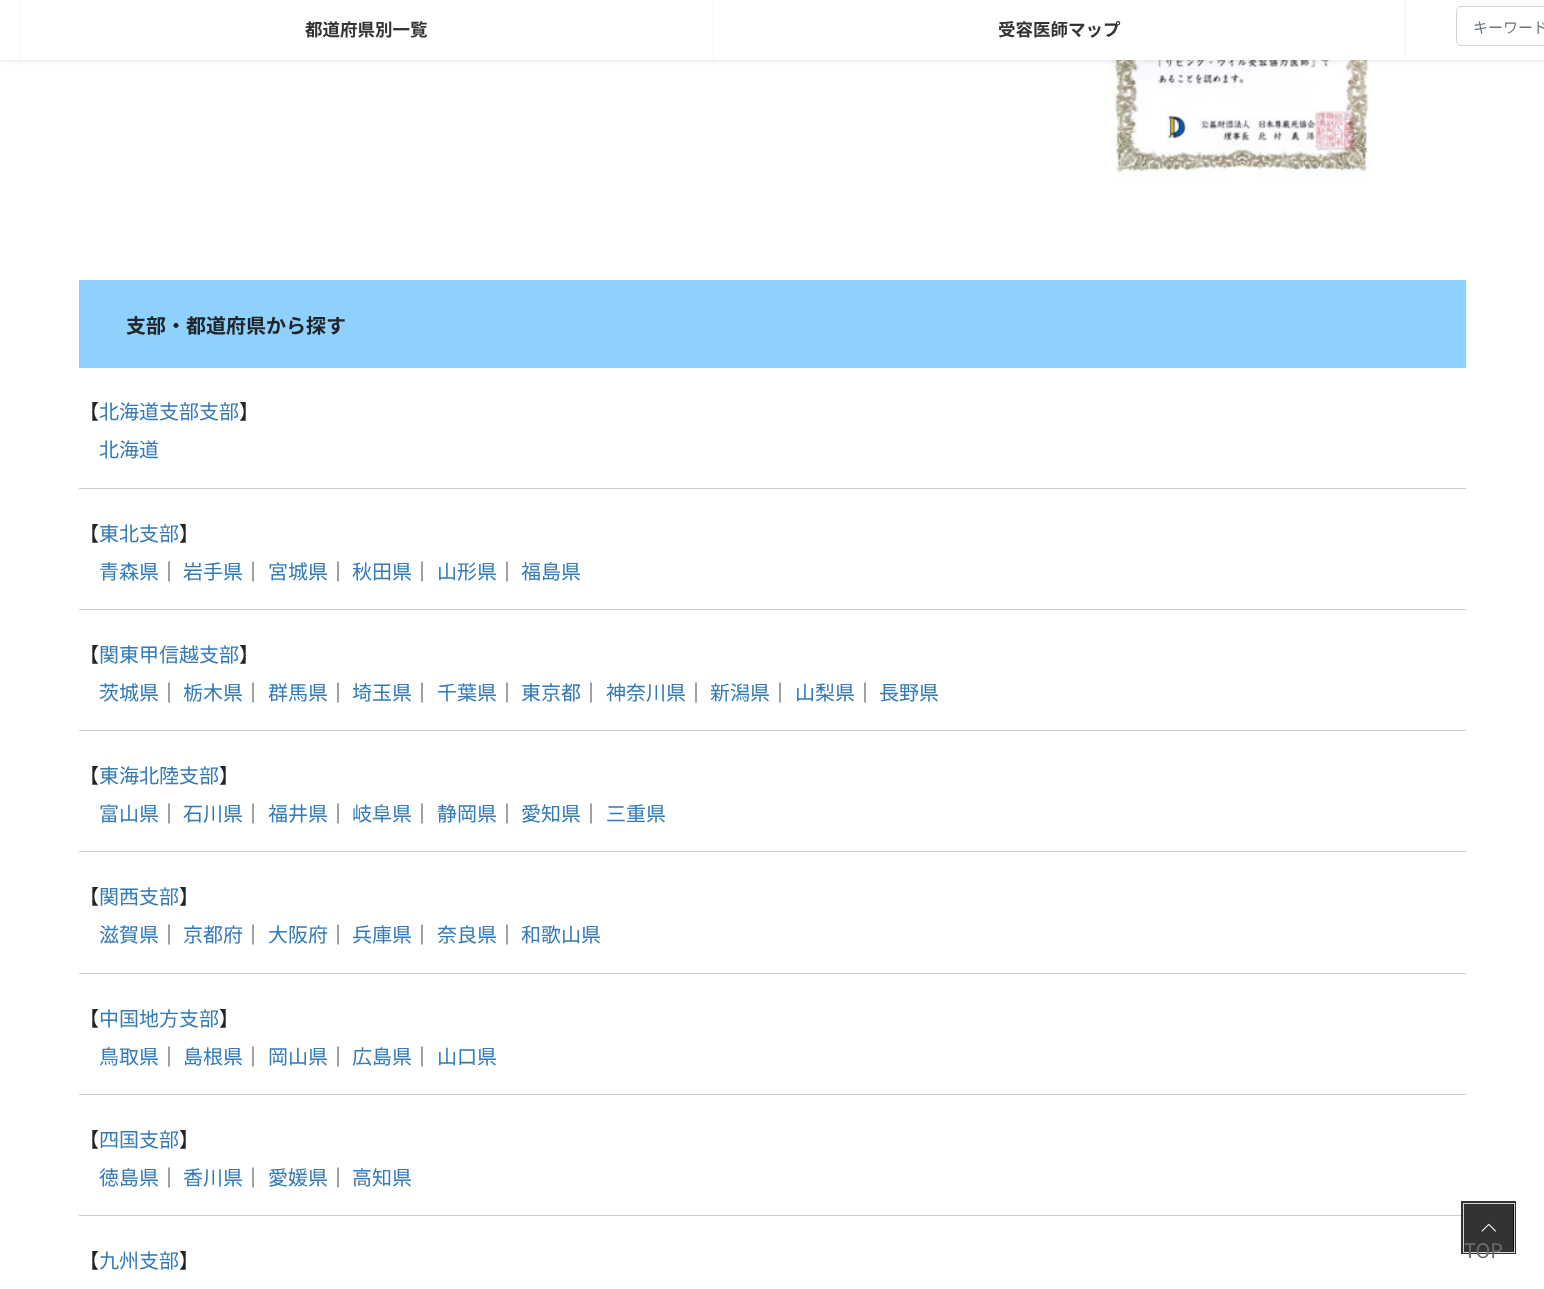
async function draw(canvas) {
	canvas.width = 1544;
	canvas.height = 1289;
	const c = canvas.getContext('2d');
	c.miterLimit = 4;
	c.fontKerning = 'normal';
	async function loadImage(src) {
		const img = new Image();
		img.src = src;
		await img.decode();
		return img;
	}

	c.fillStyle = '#fff';
	c.fillRect(0, 0, 1544, 1289);
	c.drawImage(await loadImage('img1.png'), 1106, 60, 265, 118);
	c.fillStyle = '#0000001a';
	c.filter = 'blur(2px)';
	c.beginPath();
	c.rect(0, 1, 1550, 60);
	c.fill();
	c.filter = 'none';
	c.fillStyle = '#fff';
	c.fillRect(0, 0, 1544, 60);
	c.fillStyle = '#f5f5f5';
	c.fillRect(19, 0, 1, 60);
	c.font = 'bold 17.5px Noto Sans JP';
	c.fillStyle = '#333';
	c.fillText('都道府県別一覧', 305, 36);
	c.fillStyle = '#f5f5f5';
	c.fillRect(1405, 0, 1, 60);
	c.fillRect(713, 0, 1, 60);
	c.fillStyle = '#333';
	c.fillText('受容医師マップ', 998, 36);
	c.beginPath();
	c.roundRect(1456.5, 6.5, 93, 39, 4.5);
	c.strokeStyle = '#ced4da';
	c.stroke();
	c.font = '15px Noto Sans JP';
	c.fillStyle = '#6c757d';
	c.fillText('キーワード', 1473, 33);
	c.fillStyle = '#8ed1fc';
	c.fillRect(79, 280, 1387, 88);
	c.font = 'bold 20px Noto Sans JP';
	c.fillStyle = '#212529';
	c.fillText('支部・都道府県から探す', 126, 333);
	c.fillStyle = '#cfcfcf';
	c.fillRect(79, 488, 1387, 1);
	c.font = '20px Noto Sans JP';
	c.fillStyle = '#212529';
	c.fillText('【', 79, 419);
	c.fillStyle = '#337ab7';
	c.fillText('北海道支部支部', 99, 419);
	c.fillStyle = '#212529';
	c.fillText('】', 239, 419);
	c.fillStyle = '#337ab7';
	c.fillText('北海道', 99, 457);
	c.fillStyle = '#cfcfcf';
	c.fillRect(79, 609, 1387, 1);
	c.fillStyle = '#212529';
	c.fillText('【', 79, 541);
	c.fillStyle = '#337ab7';
	c.fillText('東北支部', 99, 541);
	c.fillStyle = '#212529';
	c.fillText('】', 179, 541);
	c.fillStyle = '#337ab7';
	c.fillText('青森県', 99, 579);
	c.fillStyle = '#212529';
	c.fillText('｜', 159, 579);
	c.fillStyle = '#337ab7';
	c.fillText('岩手県', 183, 579);
	c.fillStyle = '#212529';
	c.fillText('｜', 243, 579);
	c.fillStyle = '#337ab7';
	c.fillText('宮城県', 268, 579);
	c.fillStyle = '#212529';
	c.fillText('｜', 328, 579);
	c.fillStyle = '#337ab7';
	c.fillText('秋田県', 352, 579);
	c.fillStyle = '#212529';
	c.fillText('｜', 412, 579);
	c.fillStyle = '#337ab7';
	c.fillText('山形県', 437, 579);
	c.fillStyle = '#212529';
	c.fillText('｜', 497, 579);
	c.fillStyle = '#337ab7';
	c.fillText('福島県', 521, 579);
	c.fillStyle = '#cfcfcf';
	c.fillRect(79, 730, 1387, 1);
	c.fillStyle = '#212529';
	c.fillText('【', 79, 662);
	c.fillStyle = '#337ab7';
	c.fillText('関東甲信越支部', 99, 662);
	c.fillStyle = '#212529';
	c.fillText('】', 239, 662);
	c.fillStyle = '#337ab7';
	c.fillText('茨城県', 99, 700);
	c.fillStyle = '#212529';
	c.fillText('｜', 159, 700);
	c.fillStyle = '#337ab7';
	c.fillText('栃木県', 183, 700);
	c.fillStyle = '#212529';
	c.fillText('｜', 243, 700);
	c.fillStyle = '#337ab7';
	c.fillText('群馬県', 268, 700);
	c.fillStyle = '#212529';
	c.fillText('｜', 328, 700);
	c.fillStyle = '#337ab7';
	c.fillText('埼玉県', 352, 700);
	c.fillStyle = '#212529';
	c.fillText('｜', 412, 700);
	c.fillStyle = '#337ab7';
	c.fillText('千葉県', 437, 700);
	c.fillStyle = '#212529';
	c.fillText('｜', 497, 700);
	c.fillStyle = '#337ab7';
	c.fillText('東京都', 521, 700);
	c.fillStyle = '#212529';
	c.fillText('｜', 581, 700);
	c.fillStyle = '#337ab7';
	c.fillText('神奈川県', 606, 700);
	c.fillStyle = '#212529';
	c.fillText('｜', 686, 700);
	c.fillStyle = '#337ab7';
	c.fillText('新潟県', 710, 700);
	c.fillStyle = '#212529';
	c.fillText('｜', 770, 700);
	c.fillStyle = '#337ab7';
	c.fillText('山梨県', 795, 700);
	c.fillStyle = '#212529';
	c.fillText('｜', 855, 700);
	c.fillStyle = '#337ab7';
	c.fillText('長野県', 879, 700);
	c.fillStyle = '#cfcfcf';
	c.fillRect(79, 851, 1387, 1);
	c.fillStyle = '#212529';
	c.fillText('【', 79, 783);
	c.fillStyle = '#337ab7';
	c.fillText('東海北陸支部', 99, 783);
	c.fillStyle = '#212529';
	c.fillText('】', 219, 783);
	c.fillStyle = '#337ab7';
	c.fillText('富山県', 99, 821);
	c.fillStyle = '#212529';
	c.fillText('｜', 159, 821);
	c.fillStyle = '#337ab7';
	c.fillText('石川県', 183, 821);
	c.fillStyle = '#212529';
	c.fillText('｜', 243, 821);
	c.fillStyle = '#337ab7';
	c.fillText('福井県', 268, 821);
	c.fillStyle = '#212529';
	c.fillText('｜', 328, 821);
	c.fillStyle = '#337ab7';
	c.fillText('岐阜県', 352, 821);
	c.fillStyle = '#212529';
	c.fillText('｜', 412, 821);
	c.fillStyle = '#337ab7';
	c.fillText('静岡県', 437, 821);
	c.fillStyle = '#212529';
	c.fillText('｜', 497, 821);
	c.fillStyle = '#337ab7';
	c.fillText('愛知県', 521, 821);
	c.fillStyle = '#212529';
	c.fillText('｜', 581, 821);
	c.fillStyle = '#337ab7';
	c.fillText('三重県', 606, 821);
	c.fillStyle = '#cfcfcf';
	c.fillRect(79, 973, 1387, 1);
	c.fillStyle = '#212529';
	c.fillText('【', 79, 904);
	c.fillStyle = '#337ab7';
	c.fillText('関西支部', 99, 904);
	c.fillStyle = '#212529';
	c.fillText('】', 179, 904);
	c.fillStyle = '#337ab7';
	c.fillText('滋賀県', 99, 942);
	c.fillStyle = '#212529';
	c.fillText('｜', 159, 942);
	c.fillStyle = '#337ab7';
	c.fillText('京都府', 183, 942);
	c.fillStyle = '#212529';
	c.fillText('｜', 243, 942);
	c.fillStyle = '#337ab7';
	c.fillText('大阪府', 268, 942);
	c.fillStyle = '#212529';
	c.fillText('｜', 328, 942);
	c.fillStyle = '#337ab7';
	c.fillText('兵庫県', 352, 942);
	c.fillStyle = '#212529';
	c.fillText('｜', 412, 942);
	c.fillStyle = '#337ab7';
	c.fillText('奈良県', 437, 942);
	c.fillStyle = '#212529';
	c.fillText('｜', 497, 942);
	c.fillStyle = '#337ab7';
	c.fillText('和歌山県', 521, 942);
	c.fillStyle = '#cfcfcf';
	c.fillRect(79, 1094, 1387, 1);
	c.fillStyle = '#212529';
	c.fillText('【', 79, 1026);
	c.fillStyle = '#337ab7';
	c.fillText('中国地方支部', 99, 1026);
	c.fillStyle = '#212529';
	c.fillText('】', 219, 1026);
	c.fillStyle = '#337ab7';
	c.fillText('鳥取県', 99, 1064);
	c.fillStyle = '#212529';
	c.fillText('｜', 159, 1064);
	c.fillStyle = '#337ab7';
	c.fillText('島根県', 183, 1064);
	c.fillStyle = '#212529';
	c.fillText('｜', 243, 1064);
	c.fillStyle = '#337ab7';
	c.fillText('岡山県', 268, 1064);
	c.fillStyle = '#212529';
	c.fillText('｜', 328, 1064);
	c.fillStyle = '#337ab7';
	c.fillText('広島県', 352, 1064);
	c.fillStyle = '#212529';
	c.fillText('｜', 412, 1064);
	c.fillStyle = '#337ab7';
	c.fillText('山口県', 437, 1064);
	c.fillStyle = '#cfcfcf';
	c.fillRect(79, 1215, 1387, 1);
	c.fillStyle = '#212529';
	c.fillText('【', 79, 1147);
	c.fillStyle = '#337ab7';
	c.fillText('四国支部', 99, 1147);
	c.fillStyle = '#212529';
	c.fillText('】', 179, 1147);
	c.fillStyle = '#337ab7';
	c.fillText('徳島県', 99, 1185);
	c.fillStyle = '#212529';
	c.fillText('｜', 159, 1185);
	c.fillStyle = '#337ab7';
	c.fillText('香川県', 183, 1185);
	c.fillStyle = '#212529';
	c.fillText('｜', 243, 1185);
	c.fillStyle = '#337ab7';
	c.fillText('愛媛県', 268, 1185);
	c.fillStyle = '#212529';
	c.fillText('｜', 328, 1185);
	c.fillStyle = '#337ab7';
	c.fillText('高知県', 352, 1185);
	c.fillStyle = '#212529';
	c.fillText('【', 79, 1268);
	c.fillStyle = '#337ab7';
	c.fillText('九州支部', 99, 1268);
	c.fillStyle = '#212529';
	c.fillText('】', 179, 1268);
	c.strokeStyle = '#000000cc';
	c.lineWidth = 3;
	c.strokeRect(1462.5, 1202.5, 52, 50);
	c.strokeStyle = '#ffffffcc';
	c.lineWidth = 1;
	c.strokeRect(1463.5, 1203.5, 51, 49);
	c.fillStyle = '#000000cc';
	c.fillRect(1464, 1204, 50, 47);
	c.drawImage(await loadImage('img2.png'), 1481, 1223, 15, 9);
	c.fillStyle = '#6b6b6b';
	c.fillText('TOP', 1464, 1258);
}

draw(document.querySelector('canvas'));
